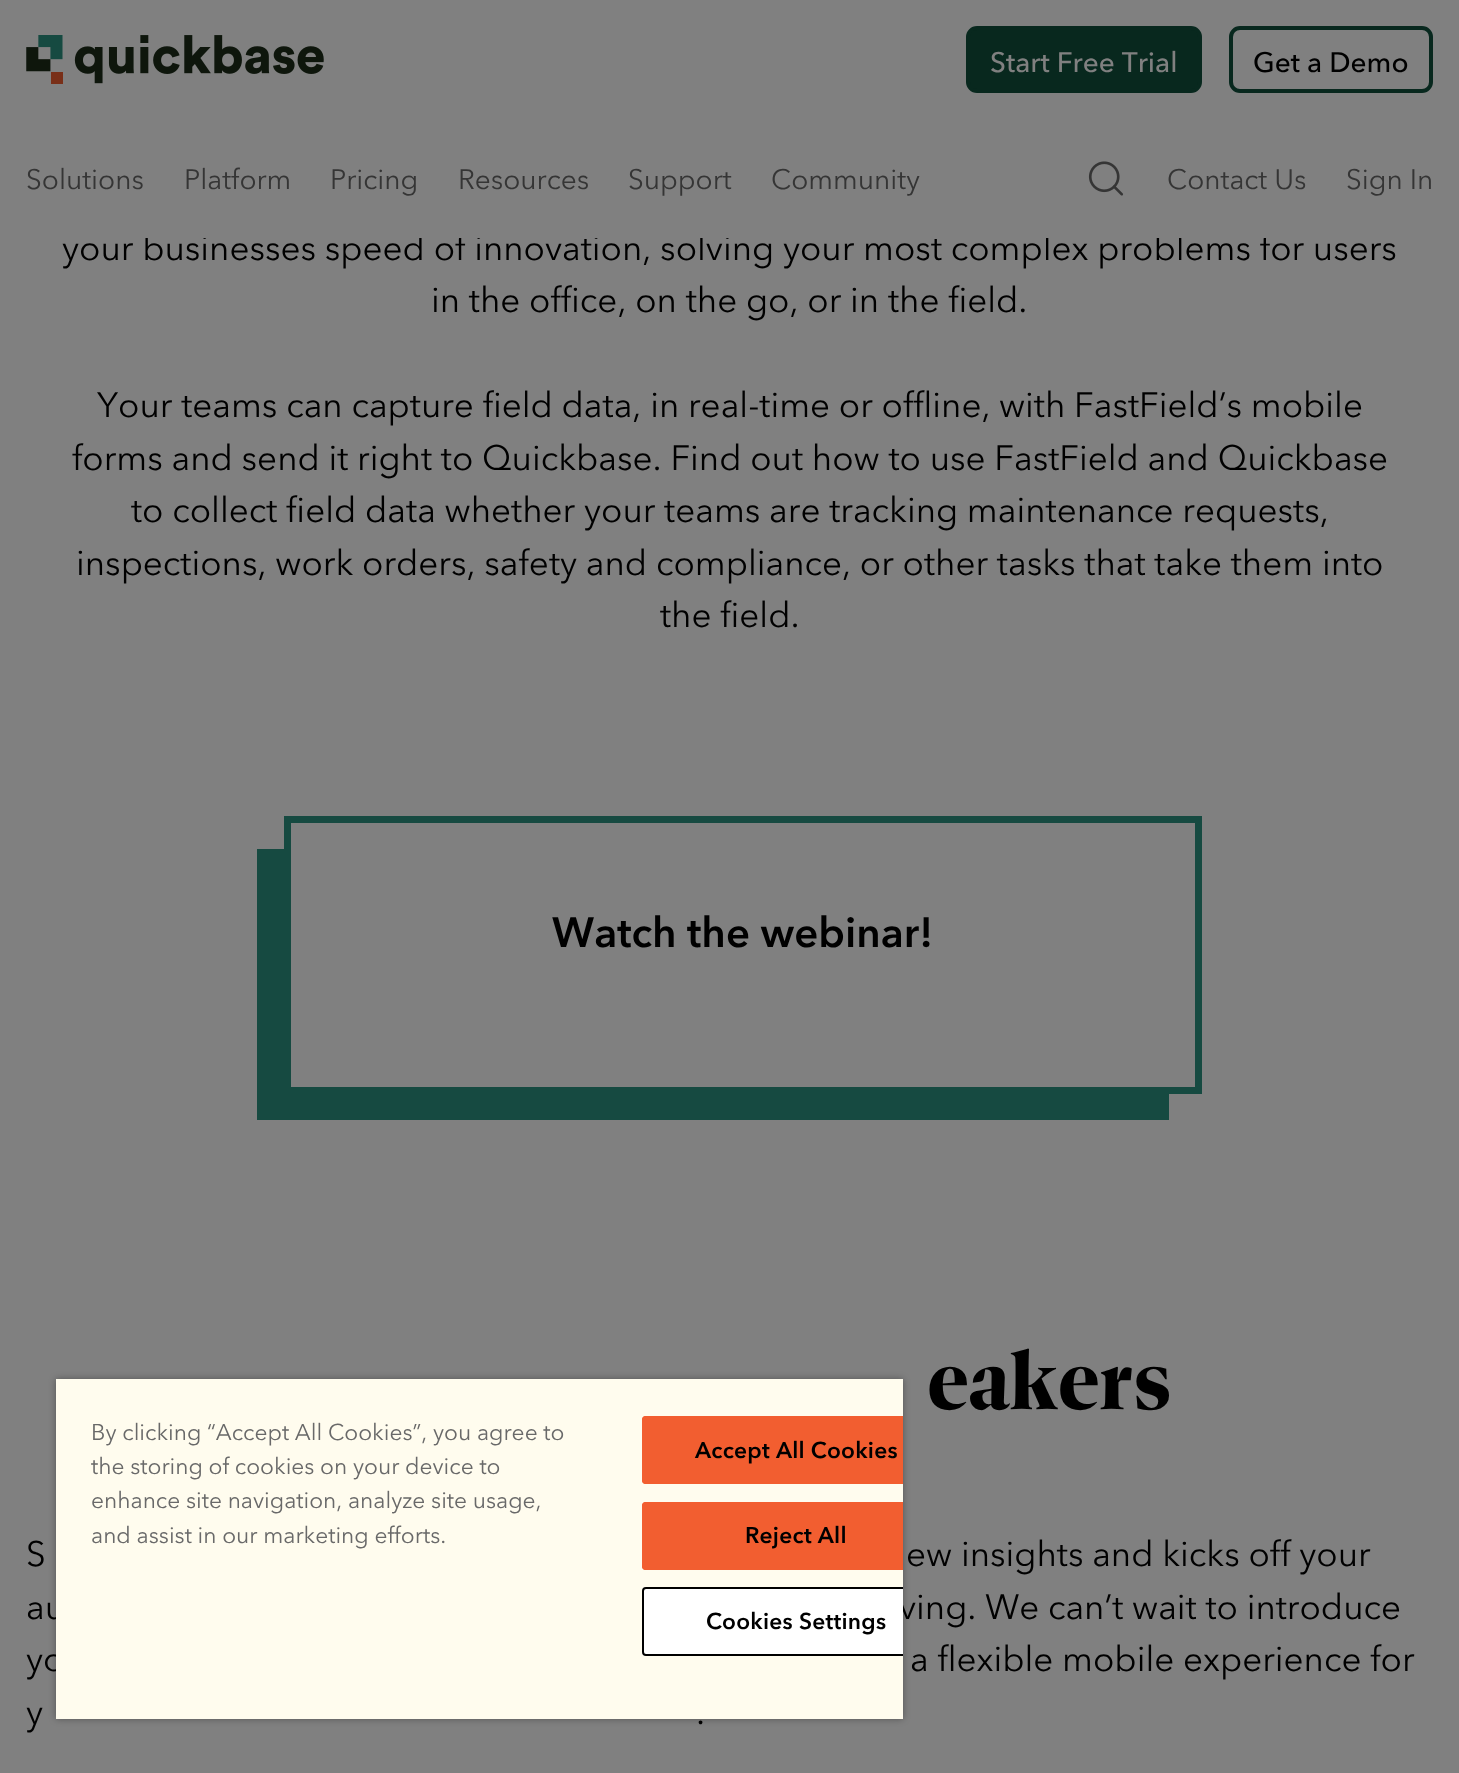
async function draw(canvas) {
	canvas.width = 1459;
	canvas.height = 1773;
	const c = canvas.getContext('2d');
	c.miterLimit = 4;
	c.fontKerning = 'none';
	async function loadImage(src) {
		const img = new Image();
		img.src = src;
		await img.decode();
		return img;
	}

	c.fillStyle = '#808080';
	c.fillRect(0, 0, 1459, 1773);
	c.font = '35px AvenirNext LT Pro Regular';
	c.fillStyle = '#000';
	c.fillText('your businesses speed of innovation, solving your most complex problems for users', 62, 260);
	c.fillStyle = '#808080';
	c.fillRect(145, 233, 1127, 5);
	c.drawImage(await loadImage('img1.png'), 26, 35, 298, 49);
	c.fillStyle = '#08281e';
	c.beginPath();
	c.roundRect(968, 28, 232, 63, 9);
	c.fill();
	c.strokeStyle = '#08281e';
	c.lineWidth = 4;
	c.stroke();
	c.font = '500 28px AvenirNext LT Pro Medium';
	c.fillStyle = '#808080';
	c.fillText('Start Free Trial', 990, 72);
	c.beginPath();
	c.roundRect(1231, 28, 200, 63, 9);
	c.stroke();
	c.fillStyle = '#000';
	c.fillText('Get a Demo', 1253, 72);
	c.font = '28px AvenirNext LT Pro Regular';
	c.fillStyle = '#353535';
	for (const [text, x, y] of [
		['Solutions', 26, 189],
		['Platform', 184, 189],
		['Pricing', 330, 189],
		['Resources', 458, 189],
		['Support', 628, 189],
		['Community', 771, 189],
	]) {
		c.fillText(text, x, y);
	}
	c.drawImage(await loadImage('img2.png'), 1088, 161, 36, 35);
	c.fillText('Contact Us', 1167, 189);
	c.fillText('Sign In', 1346, 189);
	c.font = '35px AvenirNext LT Pro Regular';
	c.fillStyle = '#000';
	for (const [text, x, y] of [
		['in the office, on the go, or in the field.', 431, 312],
		['Your teams can capture field data, in real-time or offline,', 97, 417],
		['with FastField’s mobile', 999, 417],
		['forms and send it right to Quickbase. Find out how to use FastField and Quickbase', 72, 470],
		['to collect field data whether your teams are tracking maintenance requests,', 131, 522],
		['inspections, work orders, safety and compliance, or other tasks that take them into', 76, 575],
		['the field.', 660, 627],
	]) {
		c.fillText(text, x, y);
	}
	c.strokeStyle = '#164a41';
	c.lineWidth = 7;
	c.strokeRect(287.5, 819.5, 911, 271);
	c.fillStyle = '#164a41';
	c.fillRect(257, 849, 27, 245);
	c.font = 'bold 42px AvenirNext LT Pro Regular';
	c.fillStyle = '#000';
	c.fillText('Watch the webinar!', 552, 947);
	c.fillStyle = '#164a41';
	c.fillRect(257, 1094, 912, 26);
	c.font = 'bold 84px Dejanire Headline';
	c.fillStyle = '#000';
	c.fillText('eakers', 927, 1409);
	c.font = '35px AvenirNext LT Pro Regular';
	for (const [text, x, y] of [
		['S', 26, 1566],
		['ew insights and kicks off your', 906, 1566],
		['au', 26, 1619],
		['ving. We can’t wait to introduce', 899, 1619],
		['yo', 26, 1671],
		['a flexible mobile experience for', 910, 1671],
		['y', 26, 1724],
		['.', 696, 1724],
	]) {
		c.fillText(text, x, y);
	}
	c.fillStyle = '#00000059';
	c.filter = 'blur(3.5px)';
	c.beginPath();
	c.rect(56, 1379, 847, 340);
	c.fill();
	c.filter = 'none';
	c.fillStyle = '#fffcee';
	c.fillRect(56, 1379, 847, 340);
	c.font = '22.75px AvenirNext LT Pro Regular';
	c.fillStyle = '#696969';
	for (const [text, x, y] of [
		['By clicking “Accept All Cookies”,', 91, 1440],
		['you agree to', 433, 1440],
		['the storing of cookies on your device to', 91, 1474],
		['enhance site navigation, analyze site usage,', 91, 1508],
		['and assist in our marketing efforts.', 91, 1543],
	]) {
		c.fillText(text, x, y);
	}
	c.fillStyle = '#f25e30';
	c.beginPath();
	c.roundRect(642, 1416, 261, 68, [4, 0, 0, 4]);
	c.fill();
	c.save();
	c.beginPath();
	c.rect(56, 1379, 847, 340);
	c.clip();
	c.beginPath();
	c.roundRect(643, 1417, 305, 66, 3);
	c.strokeStyle = '#f25e30';
	c.lineWidth = 2;
	c.stroke();
	c.restore();
	c.letterSpacing = '0.25px';
	c.font = 'bold 22.75px AvenirNext LT Pro Regular';
	c.fillStyle = '#000';
	c.fillText('Accept All Cookies', 695, 1458);
	c.fillStyle = '#f25e30';
	c.beginPath();
	c.roundRect(642, 1502, 261, 68, [4, 0, 0, 4]);
	c.fill();
	c.save();
	c.beginPath();
	c.rect(56, 1379, 847, 340);
	c.clip();
	c.beginPath();
	c.roundRect(643, 1503, 305, 66, 3);
	c.strokeStyle = '#f25e30';
	c.lineWidth = 2;
	c.stroke();
	c.restore();
	c.fillStyle = '#000';
	c.fillText('Reject All', 745, 1543);
	c.fillStyle = '#fff';
	c.beginPath();
	c.roundRect(642, 1587, 261, 69, [4, 0, 0, 4]);
	c.fill();
	c.save();
	c.beginPath();
	c.rect(56, 1379, 847, 340);
	c.clip();
	c.beginPath();
	c.roundRect(643, 1588, 305, 67, 3);
	c.strokeStyle = '#000';
	c.lineWidth = 2;
	c.stroke();
	c.restore();
	c.fillStyle = '#000';
	c.fillText('Cookies Settings', 706, 1629);
}

draw(document.querySelector('canvas'));
